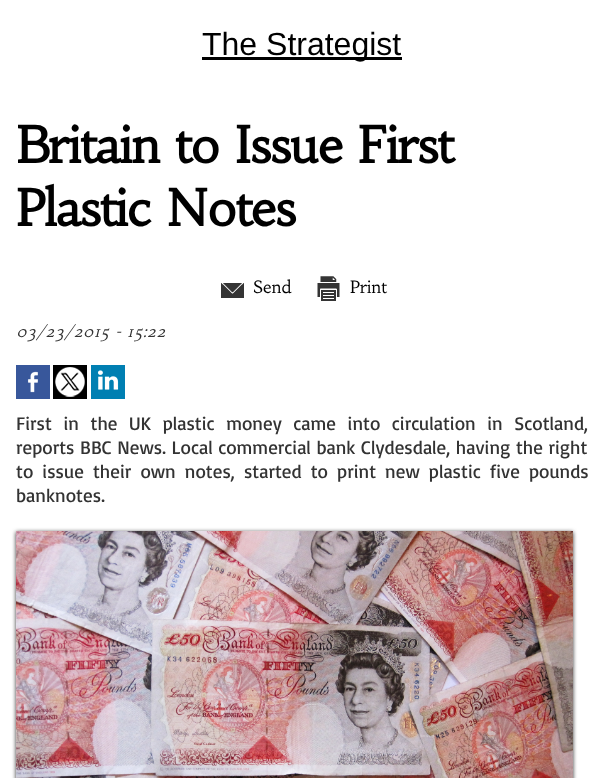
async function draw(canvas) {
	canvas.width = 604;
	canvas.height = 778;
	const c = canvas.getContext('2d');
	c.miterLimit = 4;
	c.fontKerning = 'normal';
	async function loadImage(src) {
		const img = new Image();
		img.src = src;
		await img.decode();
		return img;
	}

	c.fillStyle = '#fff';
	c.fillRect(0, 0, 604, 778);
	c.fillStyle = '#000';
	c.fillRect(202, 57, 200, 3);
	c.font = '32px Liberation Sans';
	c.fillText('The Strategist', 202, 55);
	c.letterSpacing = '-1px';
	c.font = 'bold 50px Habibi';
	c.fillText('Britain to Issue First', 16, 163);
	c.fillText('Plastic Notes', 16, 226);
	c.drawImage(await loadImage('img1.png'), 221, 283, 23, 15);
	c.letterSpacing = '0px';
	c.font = '17px Habibi';
	c.fillText('Send', 253, 293);
	c.drawImage(await loadImage('img2.png'), 317, 276, 23, 25);
	c.fillText('Print', 350, 293);
	c.font = 'italic 16px Habibi';
	c.fillStyle = '#333';
	c.fillText('03/23/2015 - 15:22', 16, 337);
	c.drawImage(await loadImage('img3.png'), 16, 365, 34, 34);
	c.drawImage(await loadImage('img4.png'), 53, 365, 34, 34);
	c.drawImage(await loadImage('img5.png'), 91, 365, 34, 34);
	c.wordSpacing = '6.25px';
	c.font = '19px Basic';
	c.fillText('First in the UK plastic money came into circulation in Scotland,', 16, 430);
	c.wordSpacing = '0.25px';
	c.fillText('reports BBC News. Local commercial bank Clydesdale, having the right', 16, 454);
	c.wordSpacing = '3.75px';
	c.fillText('to issue their own notes, started to print new plastic five pounds', 16, 478);
	c.wordSpacing = '0px';
	c.fillText('banknotes.', 16, 502);
	c.filter = 'blur(2px)';
	c.beginPath();
	c.rect(16, 532, 557, 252);
	c.fill();
	c.filter = 'none';
	c.drawImage(await loadImage('img6.png'), 16, 531, 557, 247);
}

draw(document.querySelector('canvas'));
